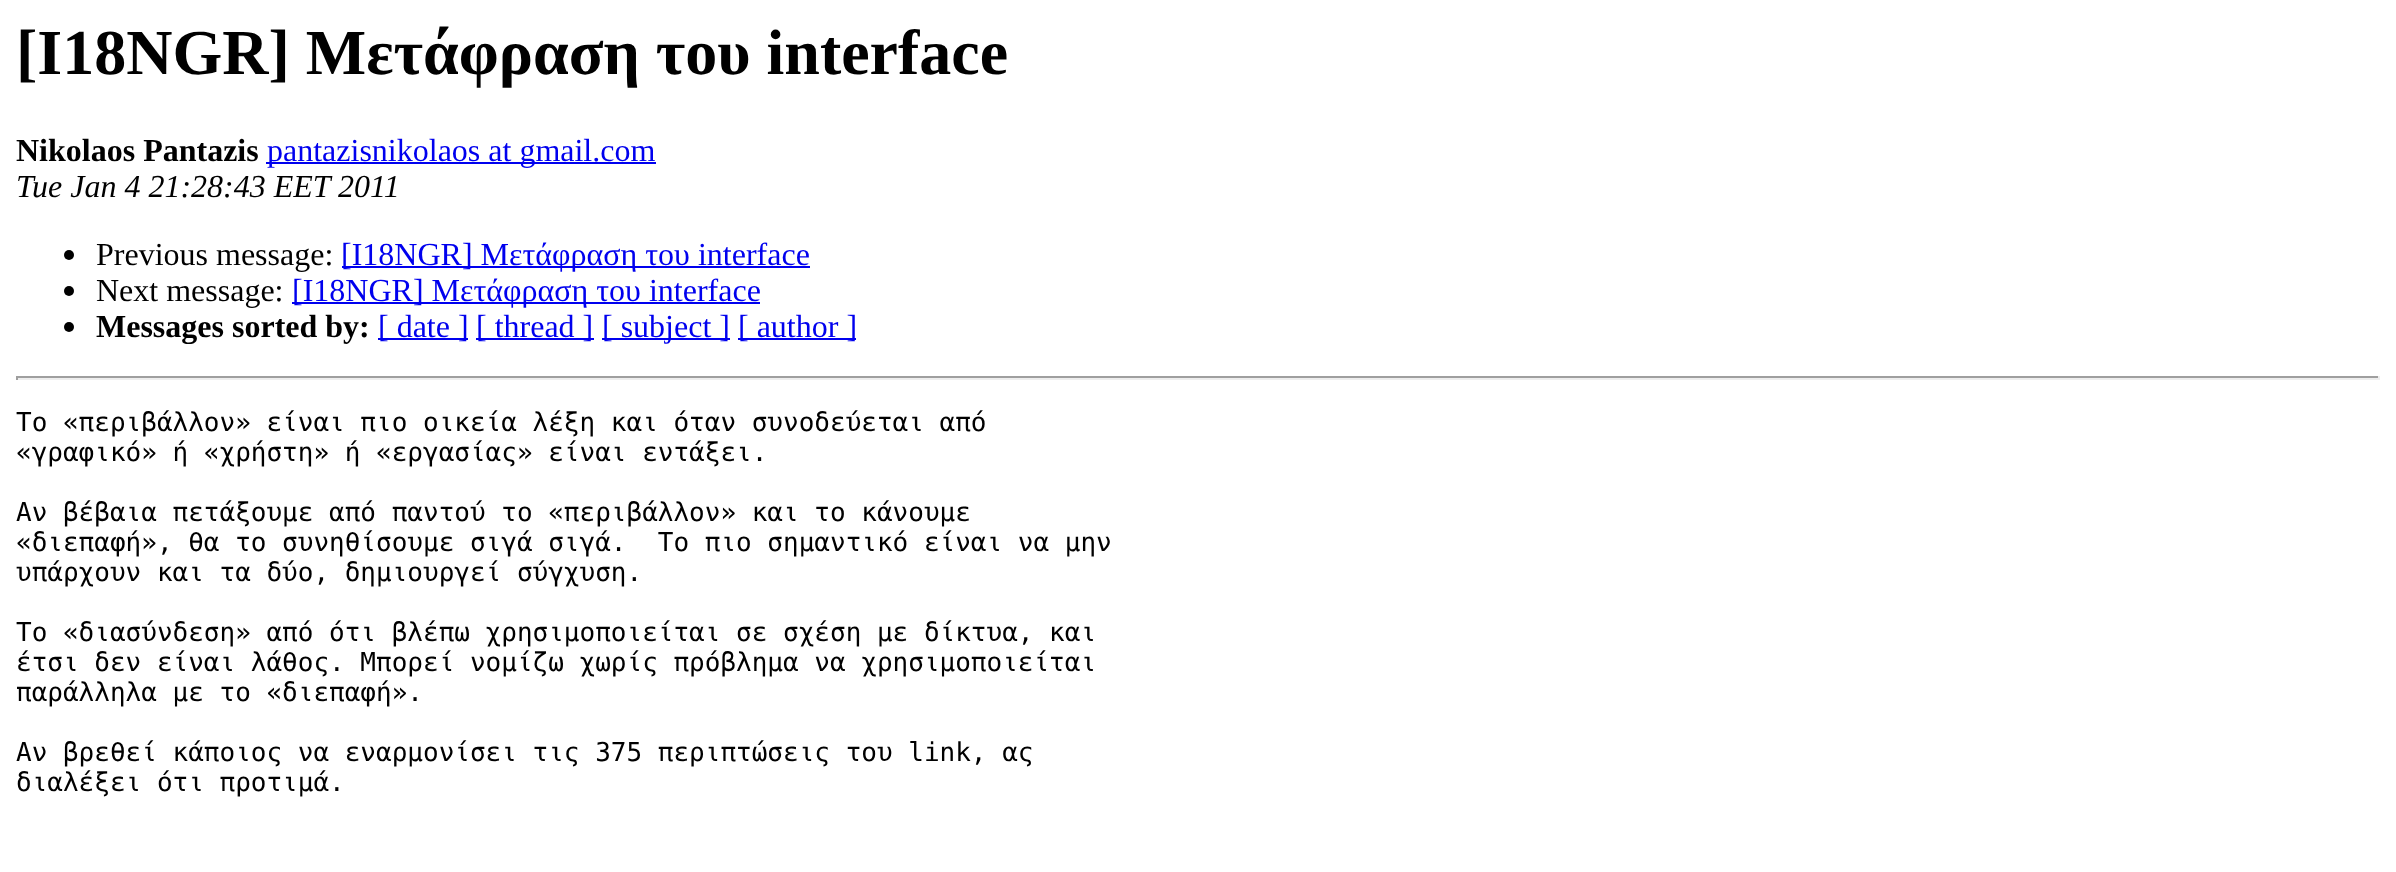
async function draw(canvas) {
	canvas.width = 2396;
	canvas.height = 872;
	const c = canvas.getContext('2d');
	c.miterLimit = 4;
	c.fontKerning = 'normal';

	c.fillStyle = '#fff';
	c.fillRect(0, 0, 2396, 872);
	c.font = 'bold 64px Liberation Serif';
	c.fillStyle = '#000';
	c.fillText('[I18NGR] Μετάφραση του interface', 16, 74);
	c.font = 'bold 32px Liberation Serif';
	c.fillText('Nikolaos Pantazis', 16, 161);
	c.fillStyle = '#00e';
	c.fillRect(266, 162, 390, 2);
	c.font = '32px Liberation Serif';
	c.fillText('pantazisnikolaos at gmail.com', 267, 161);
	c.font = 'italic 32px Liberation Serif';
	c.fillStyle = '#000';
	c.fillText('Tue Jan 4 21:28:43 EET 2011', 16, 197);
	c.beginPath();
	c.arc(69, 255, 5, 0, 2 * Math.PI);
	c.fill();
	c.font = '32px Liberation Serif';
	c.fillText('Previous message:', 96, 265);
	c.fillStyle = '#00e';
	c.fillRect(342, 266, 468, 2);
	c.fillText('[I18NGR] Μετάφραση του interface', 341, 265);
	c.fillStyle = '#000';
	c.beginPath();
	c.arc(69, 291, 5, 0, 2 * Math.PI);
	c.fill();
	c.fillText('Next message:', 96, 301);
	c.fillStyle = '#00e';
	c.fillRect(292, 302, 468, 2);
	c.fillText('[I18NGR] Μετάφραση του interface', 292, 301);
	c.fillStyle = '#000';
	c.beginPath();
	c.arc(69, 327, 5, 0, 2 * Math.PI);
	c.fill();
	c.font = 'bold 32px Liberation Serif';
	c.fillText('Messages sorted by:', 96, 337);
	c.fillStyle = '#00e';
	c.fillRect(378, 338, 90, 2);
	c.font = '32px Liberation Serif';
	c.fillText('[ date ]', 378, 337);
	c.fillRect(476, 338, 118, 2);
	c.fillText('[ thread ]', 476, 337);
	c.fillRect(602, 338, 128, 2);
	c.fillText('[ subject ]', 602, 337);
	c.fillRect(738, 338, 118, 2);
	c.fillText('[ author ]', 738, 337);
	for (const [x, y, w, h, color] of [
		[16, 376, 2364, 2, '#9f9f9f'],
		[2378, 376, 2, 4, '#eee'],
		[16, 378, 2364, 2, '#eee'],
		[16, 376, 2, 4, '#9f9f9f'],
	]) {
		c.fillStyle = color;
		c.fillRect(x, y, w, h);
	}
	c.font = '26px DejaVu Sans Mono';
	c.fillStyle = '#000';
	for (const [text, x, y] of [
		['Το «περιβάλλον» είναι πιο οικεία λέξη και όταν συνοδεύεται από', 16, 431],
		['«γραφικό» ή «χρήστη» ή «εργασίας» είναι εντάξει.', 16, 461],
		['Αν βέβαια πετάξουμε από παντού το «περιβάλλον» και το κάνουμε', 16, 521],
		['«διεπαφή», θα το συνηθίσουμε σιγά σιγά.  Το πιο σημαντικό είναι να μην', 16, 551],
		['υπάρχουν και τα δύο, δημιουργεί σύγχυση.', 16, 581],
		['Το «διασύνδεση» από ότι βλέπω χρησιμοποιείται σε σχέση με δίκτυα, και', 16, 641],
		['έτσι δεν είναι λάθος. Μπορεί νομίζω χωρίς πρόβλημα να χρησιμοποιείται', 16, 671],
		['παράλληλα με το «διεπαφή».', 16, 701],
		['Αν βρεθεί κάποιος να εναρμονίσει τις 375 περιπτώσεις του link, ας', 16, 761],
		['διαλέξει ότι προτιμά.', 16, 791],
	]) {
		c.fillText(text, x, y);
	}
}

draw(document.querySelector('canvas'));
